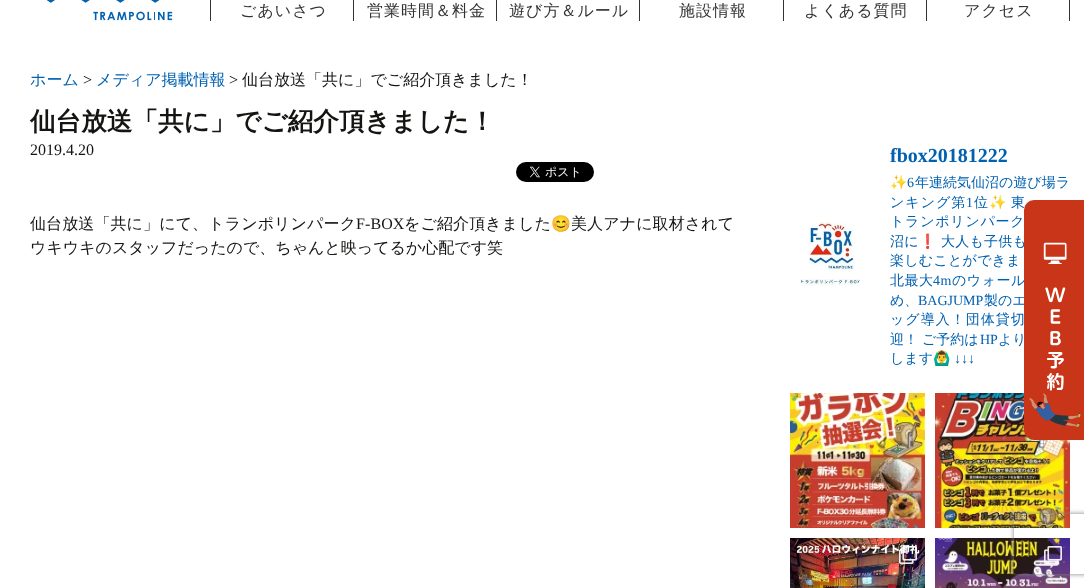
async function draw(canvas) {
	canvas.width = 1084;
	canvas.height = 588;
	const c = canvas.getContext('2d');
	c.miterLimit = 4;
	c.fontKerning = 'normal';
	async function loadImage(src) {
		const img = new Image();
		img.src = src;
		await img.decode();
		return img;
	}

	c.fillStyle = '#fff';
	c.fillRect(0, 0, 1084, 588);
	c.drawImage(await loadImage('img1.png'), 46, 0, 127, 21);
	c.fillStyle = '#333';
	c.fillRect(210, 0, 1, 21);
	c.fillRect(353, 0, 1, 21);
	c.letterSpacing = '1px';
	c.font = '500 16px WenQuanYi Zen Hei';
	c.fillText('ごあいさつ', 240, 16);
	c.fillRect(496, 0, 1, 21);
	c.fillText('営業時間＆料金', 367, 16);
	c.fillRect(639, 0, 1, 21);
	c.fillText('遊び方＆ルール', 509, 16);
	c.fillRect(783, 0, 1, 21);
	c.fillText('施設情報', 679, 16);
	c.fillRect(926, 0, 1, 21);
	c.fillText('よくある質問', 804, 16);
	c.fillRect(1069, 0, 1, 21);
	c.fillText('アクセス', 964, 16);
	c.letterSpacing = '0px';
	c.fillStyle = '#0061b1';
	c.fillText('ホーム', 30, 85);
	c.font = '16px Liberation Serif';
	c.fillStyle = '#141412';
	c.fillText('>', 83, 85);
	c.font = '500 16px WenQuanYi Zen Hei';
	c.fillStyle = '#0061b1';
	c.fillText('メディア掲載情報', 96, 85);
	c.font = '16px Liberation Serif';
	c.fillStyle = '#141412';
	c.fillText('>', 229, 85);
	c.font = '500 16px WenQuanYi Zen Hei';
	c.fillText('仙台放送「共に」でご紹介頂きました！', 242, 85);
	c.font = 'bold 25.6px WenQuanYi Zen Hei';
	c.fillText('仙台放送「共に」でご紹介頂きました！', 30, 130);
	c.font = '16px Liberation Serif';
	c.fillText('2019.4.20', 30, 155);
	c.drawImage(await loadImage('img2.png'), 516, 162, 78, 20);
	c.letterSpacing = '0.1px';
	c.font = '500 16px WenQuanYi Zen Hei';
	c.fillText('仙台放送「共に」にて、トランポリンパーク', 30, 229);
	c.font = '16px Liberation Serif';
	c.fillText('F-BOX', 356, 229);
	c.font = '500 16px WenQuanYi Zen Hei';
	c.fillText('をご紹介頂きました', 404, 229);
	c.font = '16px Noto Color Emoji';
	c.fillText('😊', 551, 229);
	c.font = '500 16px WenQuanYi Zen Hei';
	c.fillText('美人アナに取材されて', 571, 229);
	c.letterSpacing = '0px';
	c.fillText('ウキウキのスタッフだったので、ちゃんと映ってるか心配です笑', 30, 253);
	c.drawImage(await loadImage('img3.png'), 800, 221, 60, 65);
	c.font = 'bold 20px Liberation Serif';
	c.fillStyle = '#0061b1';
	c.fillText('fbox20181222', 890, 162);
	c.font = '14px Noto Color Emoji';
	c.fillText('✨', 890, 187);
	c.font = '14px Liberation Serif';
	c.fillText('6', 907, 187);
	c.font = '500 14px WenQuanYi Zen Hei';
	c.fillText('年連続気仙沼の遊び場ラ', 915, 187);
	c.letterSpacing = '1px';
	c.fillText('ンキング第', 890, 207);
	c.font = '14px Liberation Serif';
	c.fillText('1', 966, 207);
	c.font = '500 14px WenQuanYi Zen Hei';
	c.fillText('位', 974, 207);
	c.font = '14px Noto Color Emoji';
	c.fillText('✨', 989, 207);
	c.font = '500 14px WenQuanYi Zen Hei';
	c.fillText('東', 1011, 207);
	c.letterSpacing = '0.75px';
	c.fillText('トランポリンパーク', 890, 226);
	c.letterSpacing = '0.25px';
	c.fillText('沼に', 890, 246);
	c.font = '14px Noto Color Emoji';
	c.fillText('❗️', 919, 246);
	c.font = '500 14px WenQuanYi Zen Hei';
	c.fillText('大人も子供も', 941, 246);
	c.fillText('楽しむことができま', 890, 265);
	c.letterSpacing = '0.5px';
	c.fillText('北最大', 890, 285);
	c.font = '14px Liberation Serif';
	c.fillText('4m', 933, 285);
	c.font = '500 14px WenQuanYi Zen Hei';
	c.fillText('のウォール', 952, 285);
	c.letterSpacing = '0px';
	c.fillText('め、', 890, 305);
	c.font = '14px Liberation Serif';
	c.fillText('BAGJUMP', 918, 305);
	c.font = '500 14px WenQuanYi Zen Hei';
	c.fillText('製のエ', 984, 305);
	c.letterSpacing = '1px';
	c.fillText('ッグ導入！団体貸切', 890, 324);
	c.letterSpacing = '0px';
	c.fillText('迎！', 890, 344);
	c.fillText('ご予約は', 922, 344);
	c.font = '14px Liberation Serif';
	c.fillText('HP', 980, 344);
	c.font = '500 14px WenQuanYi Zen Hei';
	c.fillText('より', 998, 344);
	c.fillText('します', 890, 363);
	c.font = '14px Noto Color Emoji';
	c.fillText('🙆‍♂️', 933, 363);
	c.font = '14px Liberation Serif';
	c.fillText('↓↓↓', 954, 363);
	c.drawImage(await loadImage('img4.png'), 790, 393, 135, 135);
	c.drawImage(await loadImage('img5.png'), 935, 393, 135, 135);
	c.drawImage(await loadImage('img6.png'), 790, 538, 135, 50);
	c.drawImage(await loadImage('img7.png'), 899, 546, 18, 18);
	c.drawImage(await loadImage('img8.png'), 935, 538, 135, 50);
	c.save();
	c.beginPath();
	c.moveTo(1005, 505);
	c.lineTo(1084, 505);
	c.lineTo(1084, 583);
	c.lineTo(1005, 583);
	c.closePath();
	c.moveTo(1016, 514);
	c.lineTo(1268, 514);
	c.bezierCurveTo(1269, 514, 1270, 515, 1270, 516);
	c.lineTo(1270, 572);
	c.bezierCurveTo(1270, 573, 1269, 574, 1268, 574);
	c.lineTo(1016, 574);
	c.bezierCurveTo(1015, 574, 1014, 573, 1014, 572);
	c.lineTo(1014, 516);
	c.bezierCurveTo(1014, 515, 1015, 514, 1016, 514);
	c.closePath();
	c.clip('evenodd');
	c.fillStyle = '#808080';
	c.filter = 'blur(2.5px)';
	c.beginPath();
	c.roundRect(1014, 514, 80, 60, 2);
	c.fill();
	c.filter = 'none';
	c.restore();
	c.drawImage(await loadImage('img9.png'), 1044, 546, 18, 18);
	c.fillStyle = '#c83518';
	c.beginPath();
	c.roundRect(1024, 200, 60, 240, [10, 0, 0, 10]);
	c.fill();
	c.drawImage(await loadImage('img10.png'), 1029, 242, 52, 185);
}

draw(document.querySelector('canvas'));
